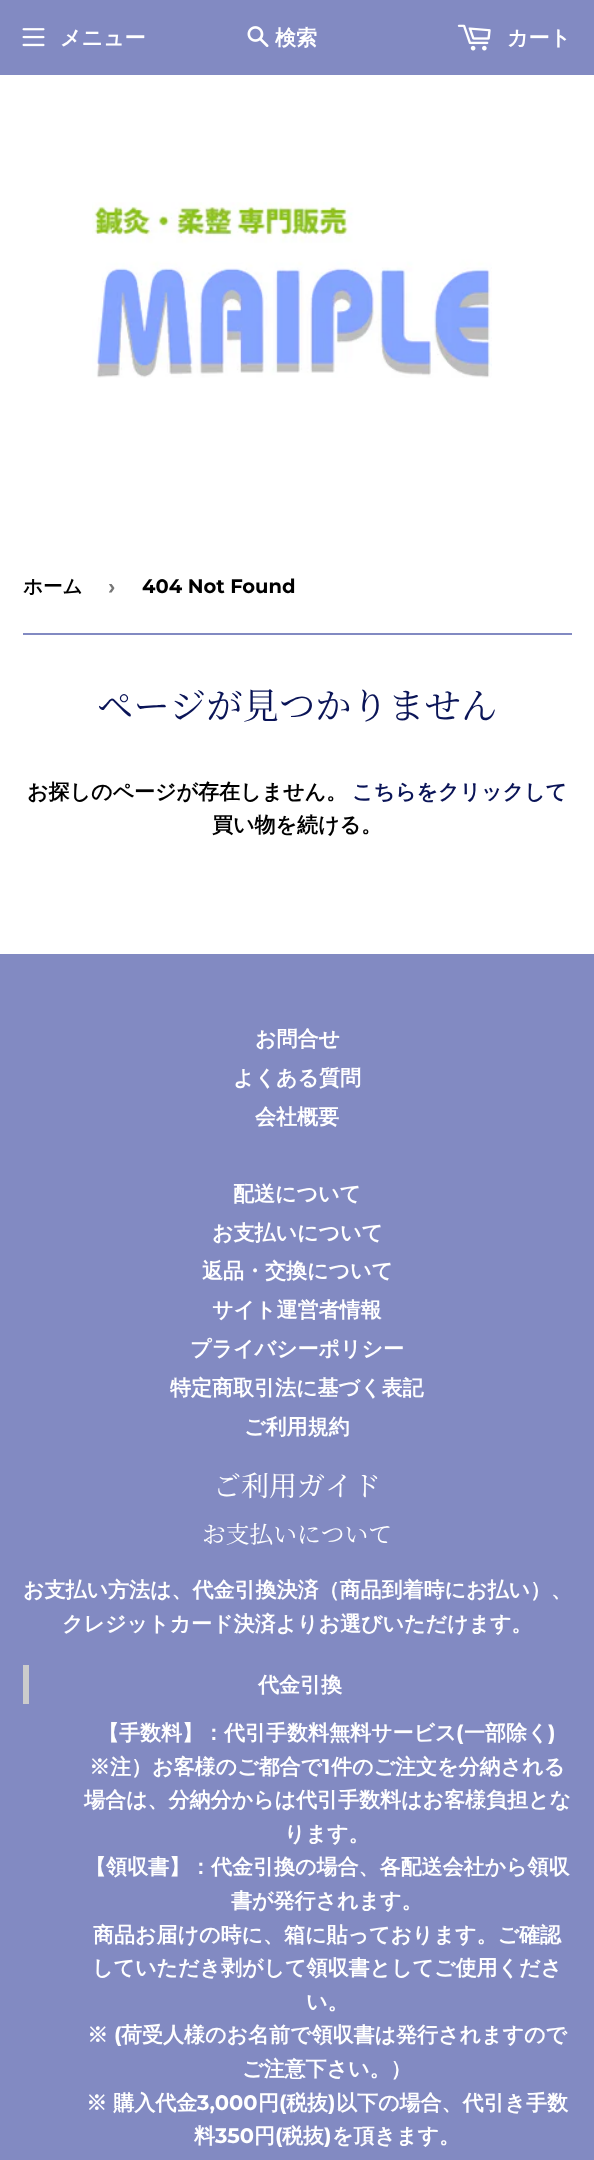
async function draw(canvas) {
	canvas.width = 594;
	canvas.height = 2160;
	const c = canvas.getContext('2d');
	c.miterLimit = 4;
	c.fontKerning = 'normal';
	async function loadImage(src) {
		const img = new Image();
		img.src = src;
		await img.decode();
		return img;
	}

	c.fillStyle = '#fff';
	c.fillRect(0, 0, 594, 2160);
	c.fillStyle = '#828ac2';
	c.fillRect(0, 0, 594, 75);
	c.drawImage(await loadImage('img1.png'), 22, 28, 23, 19);
	c.font = 'bold 21px WenQuanYi Zen Hei';
	c.fillStyle = '#fff';
	c.fillText('メニュー', 60, 45);
	c.drawImage(await loadImage('img2.png'), 247, 26, 22, 21);
	c.fillText('検索', 275, 45);
	c.drawImage(await loadImage('img3.png'), 457, 24, 34, 27);
	c.fillText('カート', 507, 45);
	c.drawImage(await loadImage('img4.png'), 92, 202, 400, 176);
	c.fillStyle = '#828ac2';
	c.fillRect(23, 633, 549, 2);
	c.font = 'bold 19.5px WenQuanYi Zen Hei';
	c.fillStyle = '#000';
	c.fillText('ホーム', 23, 593);
	c.font = 'bold 22px Liberation Sans';
	c.fillStyle = '#767676';
	c.fillText('›', 108, 594);
	c.font = 'bold 19.5px Montserrat';
	c.fillStyle = '#000';
	c.fillText('404 Not Found', 142, 593);
	c.font = '36.4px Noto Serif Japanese';
	c.fillStyle = '#0a1457';
	c.fillText('ページが見つかりません', 97, 719);
	c.font = 'bold 21px WenQuanYi Zen Hei';
	c.fillStyle = '#000';
	c.fillText('お探しのページが存在しません。', 27, 799);
	c.fillStyle = '#0a1457';
	c.fillText('こちらをクリックして', 352, 799);
	c.fillStyle = '#000';
	c.fillText('買い物を続ける。', 212, 832);
	c.fillStyle = '#828ac2';
	c.fillRect(0, 954, 594, 1206);
	c.fillStyle = '#fff';
	for (const [text, x, y] of [
		['お問合せ', 255, 1046],
		['よくある質問', 233, 1085],
		['会社概要', 255, 1124],
		['配送について', 233, 1201],
		['お支払いについて', 212, 1240],
		['返品・交換について', 202, 1278],
		['サイト運営者情報', 212, 1317],
		['プライバシーポリシー', 190, 1356],
		['特定商取引法に基づく表記', 170, 1395],
		['ご利用規約', 244, 1434],
	]) {
		c.fillText(text, x, y);
	}
	c.font = '28px Noto Serif Japanese';
	c.fillText('ご利用ガイド', 213, 1496);
	c.font = '23.75px Noto Serif Japanese';
	c.fillText('お支払いについて', 202, 1543);
	c.font = 'bold 21px WenQuanYi Zen Hei';
	c.fillText('お支払い方法は、代金引換決済（商品到着時にお払い）、', 23, 1597);
	c.fillText('クレジットカード決済よりお選びいただけます。', 62, 1631);
	c.fillStyle = '#ccc';
	c.fillRect(23, 1665, 6, 39);
	c.fillStyle = '#fff';
	c.fillText('代金引換', 258, 1692);
	c.fillText('【手数料】：代引手数料無料サービス', 98, 1740);
	c.font = 'bold 21px Montserrat';
	c.fillText('(', 456, 1740);
	c.font = 'bold 21px WenQuanYi Zen Hei';
	c.fillText('一部除く', 464, 1740);
	c.font = 'bold 21px Montserrat';
	c.fillText(')', 548, 1740);
	c.font = 'bold 21px WenQuanYi Zen Hei';
	c.fillText('※注）お客様のご都合で', 89, 1774);
	c.font = 'bold 21px Montserrat';
	c.fillText('1', 322, 1774);
	c.font = 'bold 21px WenQuanYi Zen Hei';
	for (const [text, x, y] of [
		['件のご注文を分納される', 331, 1774],
		['場合は、分納分からは代引手数料はお客様負担とな', 84, 1807],
		['ります。', 284, 1841],
		['【領収書】：代金引換の場合、各配送会社から領収', 85, 1874],
		['書が発行されます。', 231, 1908],
		['商品お届けの時に、箱に貼っております。ご確認', 93, 1942],
		['していただき剥がして領収書としてご使用くださ', 92, 1975],
		['い。', 306, 2009],
		['※', 87, 2042],
	]) {
		c.fillText(text, x, y);
	}
	c.font = 'bold 21px Montserrat';
	c.fillText('(', 114, 2042);
	c.font = 'bold 21px WenQuanYi Zen Hei';
	for (const [text, x, y] of [
		['荷受人様のお名前で領収書は発行されますので', 121, 2042],
		['ご注意下さい。）', 242, 2076],
		['※ 購入代金', 86, 2110],
	]) {
		c.fillText(text, x, y);
	}
	c.font = 'bold 21px Montserrat';
	c.fillText('3,000', 197, 2110);
	c.font = 'bold 21px WenQuanYi Zen Hei';
	c.fillText('円', 258, 2110);
	c.font = 'bold 21px Montserrat';
	c.fillText('(', 279, 2110);
	c.font = 'bold 21px WenQuanYi Zen Hei';
	c.fillText('税抜', 286, 2110);
	c.font = 'bold 21px Montserrat';
	c.fillText(')', 328, 2110);
	c.font = 'bold 21px WenQuanYi Zen Hei';
	c.fillText('以下の場合、代引き手数', 336, 2110);
	c.fillText('料', 194, 2143);
	c.font = 'bold 21px Montserrat';
	c.fillText('350', 215, 2143);
	c.font = 'bold 21px WenQuanYi Zen Hei';
	c.fillText('円', 254, 2143);
	c.font = 'bold 21px Montserrat';
	c.fillText('(', 275, 2143);
	c.font = 'bold 21px WenQuanYi Zen Hei';
	c.fillText('税抜', 282, 2143);
	c.font = 'bold 21px Montserrat';
	c.fillText(')', 324, 2143);
	c.font = 'bold 21px WenQuanYi Zen Hei';
	c.fillText('を頂きます。', 332, 2143);
}

draw(document.querySelector('canvas'));
